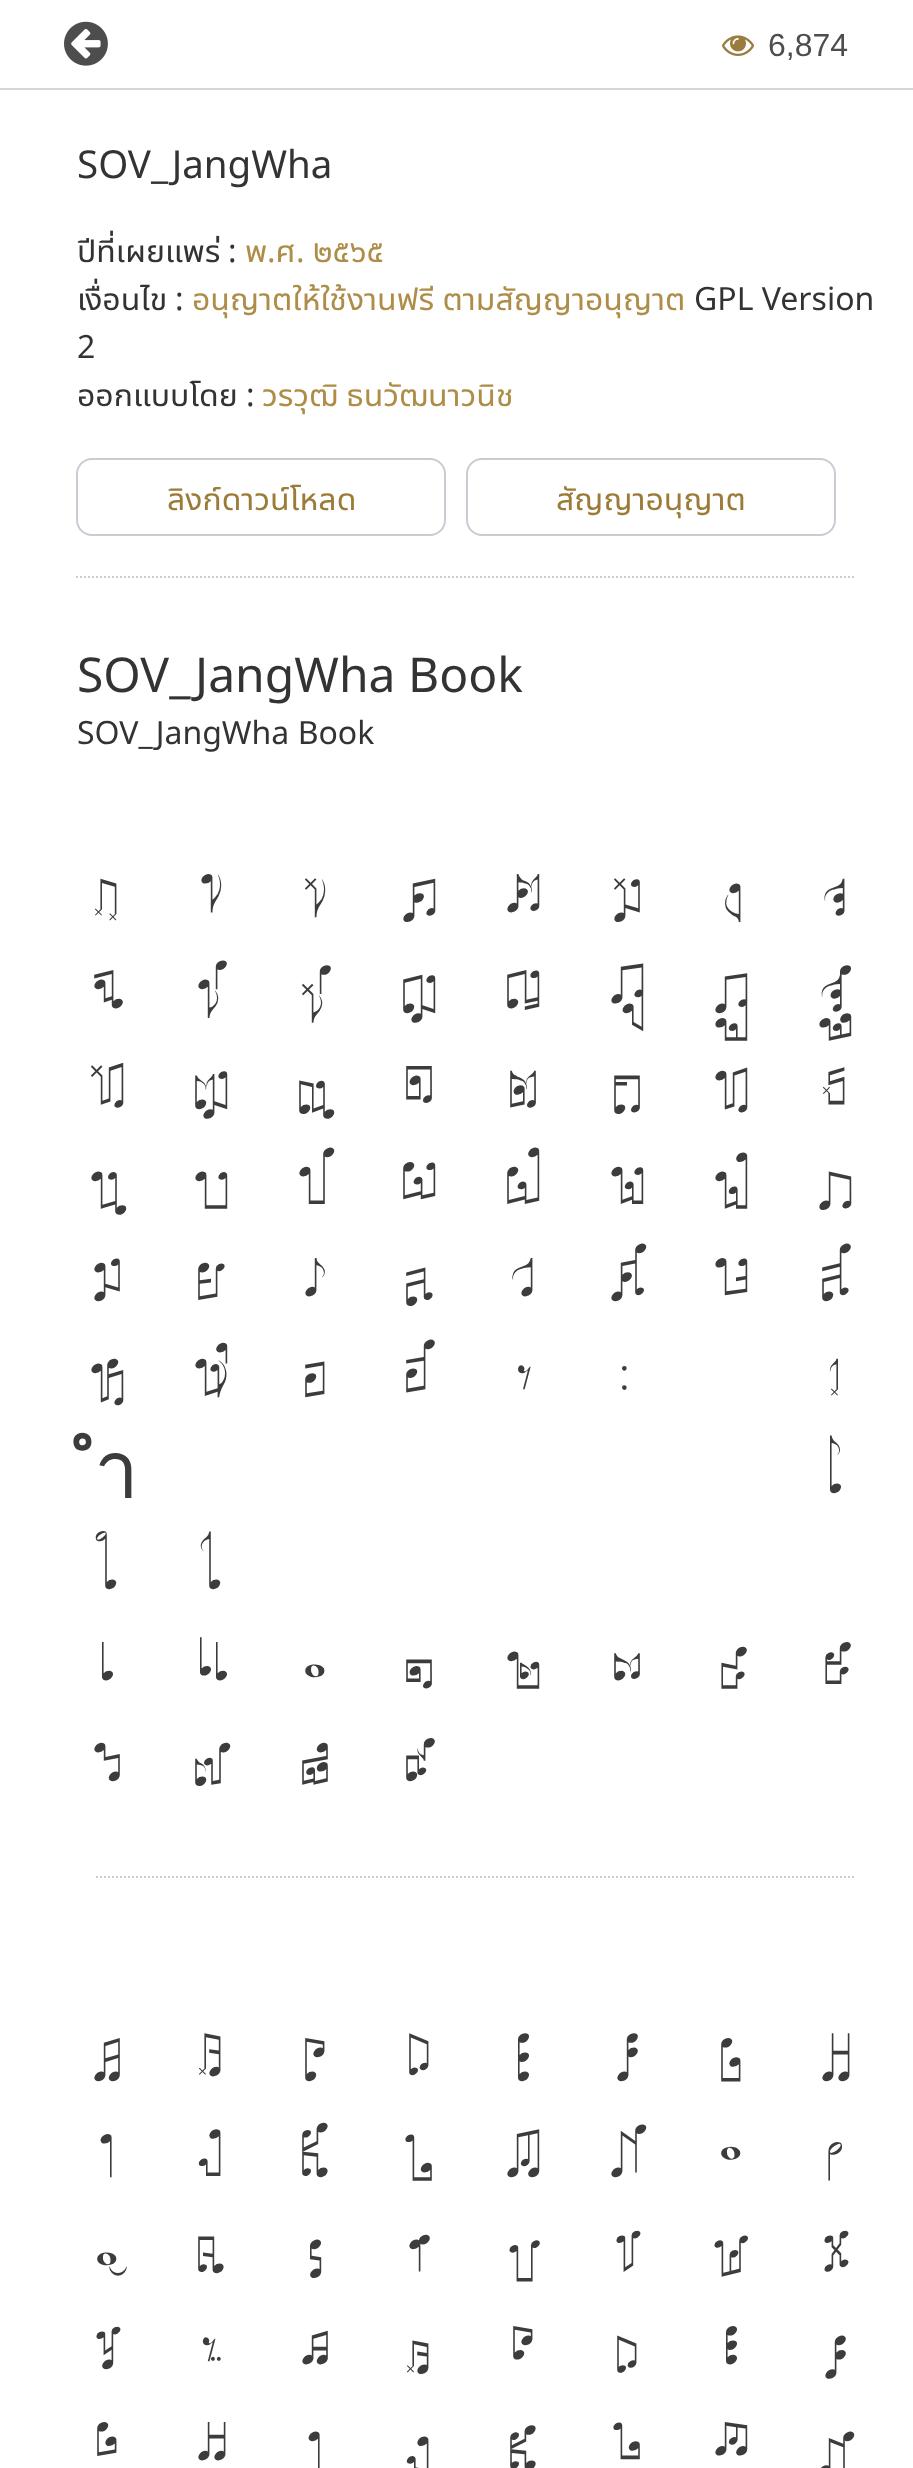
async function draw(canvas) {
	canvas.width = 913;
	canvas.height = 2468;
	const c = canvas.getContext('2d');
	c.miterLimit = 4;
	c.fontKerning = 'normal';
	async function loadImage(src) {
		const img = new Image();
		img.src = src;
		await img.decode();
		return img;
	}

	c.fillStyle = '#fff';
	c.fillRect(0, 0, 913, 2468);
	c.fillStyle = '#d2d6db';
	c.fillRect(0, 88, 913, 2);
	c.drawImage(await loadImage('img1.png'), 64, 21, 44, 45);
	c.drawImage(await loadImage('img2.png'), 722, 35, 32, 21);
	c.font = '32px Liberation Sans';
	c.fillStyle = '#4d4d4d';
	c.fillText('6,874', 768, 56);
	c.font = '38.5px Noto Sans';
	c.fillStyle = '#333';
	c.fillText('SOV_JangWha', 77, 178);
	c.font = '32px Noto Sans Thai UI';
	c.fillText('ปีที่เผยแพร่', 77, 262);
	c.font = '32px Noto Sans';
	c.fillText(':', 228, 262);
	c.font = '32px Noto Sans Thai UI';
	c.fillStyle = '#ad8d47';
	c.fillText('พ ศ', 245, 262);
	c.fillText('๒๕๖๕', 313, 262);
	c.font = '32px Noto Sans';
	c.fillText('.', 267, 262);
	c.fillText('.', 296, 262);
	c.font = '32px Noto Sans Thai UI';
	c.fillStyle = '#333';
	c.fillText('เงื่อนไข', 77, 310);
	c.font = '32px Noto Sans';
	c.fillText(':', 175, 310);
	c.font = '32px Noto Sans Thai UI';
	c.fillStyle = '#ad8d47';
	c.fillText('อนุญาตให้ใช้งานฟรี ตามสัญญาอนุญาต', 192, 310);
	c.font = '32px Noto Sans';
	c.fillStyle = '#333';
	c.fillText('GPL Version', 694, 310);
	c.fillText('2', 77, 358);
	c.font = '32px Noto Sans Thai UI';
	c.fillText('ออกแบบโดย', 77, 406);
	c.font = '32px Noto Sans';
	c.fillText(':', 246, 406);
	c.font = '32px Noto Sans Thai UI';
	c.fillStyle = '#ad8d47';
	c.fillText('วรวุฒิ ธนวัฒนาวนิช', 262, 406);
	c.beginPath();
	c.roundRect(77, 459, 368, 76, 15);
	c.strokeStyle = '#c8ccd3';
	c.lineWidth = 2;
	c.stroke();
	c.fillStyle = '#9c7b37';
	c.fillText('ลิงก์ดาวน์โหลด', 167, 510);
	c.beginPath();
	c.roundRect(467, 459, 368, 76, 15);
	c.stroke();
	c.fillText('สัญญาอนุญาต', 556, 510);
	c.beginPath();
	c.moveTo(76, 577);
	c.lineTo(856, 577);
	c.strokeStyle = '#ccc';
	c.setLineDash([2, 2]);
	c.stroke();
	c.font = '48px Noto Sans';
	c.fillStyle = '#333';
	c.fillText('SOV_JangWha Book', 77, 692);
	c.font = '32px Noto Sans';
	c.fillText('SOV_JangWha Book', 77, 744);
	c.font = '80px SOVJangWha';
	c.fillStyle = '#3c3c3c';
	for (const [text, x, y] of [
		['ก', 94, 922],
		['ข', 198, 922],
		['ฃ', 302, 922],
		['ค', 400, 922],
		['ฅ', 504, 922],
		['ฆ', 611, 922],
		['ง', 718, 922],
		['จ', 822, 922],
		['ฉ', 91, 1018],
		['ช', 195, 1018],
		['ซ', 299, 1018],
		['ฌ', 400, 1018],
		['ญ', 504, 1018],
		['ฎ', 608, 1018],
		['ฏ', 712, 1018],
		['ฐ', 816, 1018],
		['ฑ', 88, 1114],
		['ฒ', 192, 1114],
		['ณ', 296, 1114],
		['ด', 403, 1114],
		['ต', 507, 1114],
		['ถ', 611, 1114],
		['ท', 712, 1114],
		['ธ', 822, 1114],
		['น', 88, 1210],
		['บ', 192, 1210],
		['ป', 296, 1210],
		['ผ', 400, 1210],
		['ฝ', 504, 1210],
		['พ', 608, 1210],
		['ฟ', 712, 1210],
		['ภ', 816, 1210],
		['ม', 91, 1306],
		['ย', 195, 1306],
		['ร', 302, 1306],
		['ล', 403, 1306],
		['ว', 510, 1306],
		['ศ', 608, 1306],
		['ษ', 712, 1306],
		['ส', 819, 1306],
		['ห', 88, 1402],
		['ฬ', 192, 1402],
		['อ', 302, 1402],
		['ฮ', 403, 1402],
		['ฯ', 510, 1402],
		['ะ', 619, 1402],
		['า', 822, 1402],
		['ำ', 94, 1498],
		['โ', 822, 1498],
		['ใ', 94, 1594],
		['ไ', 198, 1594],
		['เ', 94, 1690],
		['แ', 192, 1690],
		['๐', 302, 1690],
		['๑', 403, 1690],
		['๒', 504, 1690],
		['๓', 611, 1690],
		['๔', 715, 1690],
		['๕', 819, 1690],
		['๖', 91, 1786],
		['๗', 192, 1786],
		['๘', 299, 1786],
		['๙', 403, 1786],
	]) {
		c.fillText(text, x, y);
	}
	c.beginPath();
	c.moveTo(96, 1877);
	c.lineTo(856, 1877);
	c.stroke();
	for (const [text, x, y] of [
		['A', 91, 2086],
		['B', 198, 2086],
		['C', 302, 2086],
		['D', 406, 2086],
		['E', 510, 2086],
		['F', 614, 2086],
		['G', 718, 2086],
		['H', 819, 2086],
		['I', 94, 2182],
		['J', 198, 2182],
		['K', 299, 2182],
		['L', 403, 2182],
		['M', 504, 2182],
		['N', 608, 2182],
		['O', 718, 2182],
		['P', 822, 2182],
		['Q', 94, 2278],
		['R', 195, 2278],
		['S', 302, 2278],
		['T', 406, 2278],
		['U', 507, 2278],
		['V', 614, 2278],
		['W', 712, 2278],
		['X', 822, 2278],
		['Y', 94, 2374],
		['Z', 198, 2374],
		['a', 299, 2374],
		['b', 406, 2374],
		['c', 510, 2374],
		['d', 614, 2374],
		['e', 718, 2374],
		['f', 822, 2374],
		['g', 94, 2470],
		['h', 195, 2470],
		['i', 302, 2470],
		['j', 406, 2470],
		['k', 507, 2470],
		['l', 611, 2470],
		['m', 712, 2470],
		['n', 816, 2470],
	]) {
		c.fillText(text, x, y);
	}
}

draw(document.querySelector('canvas'));
